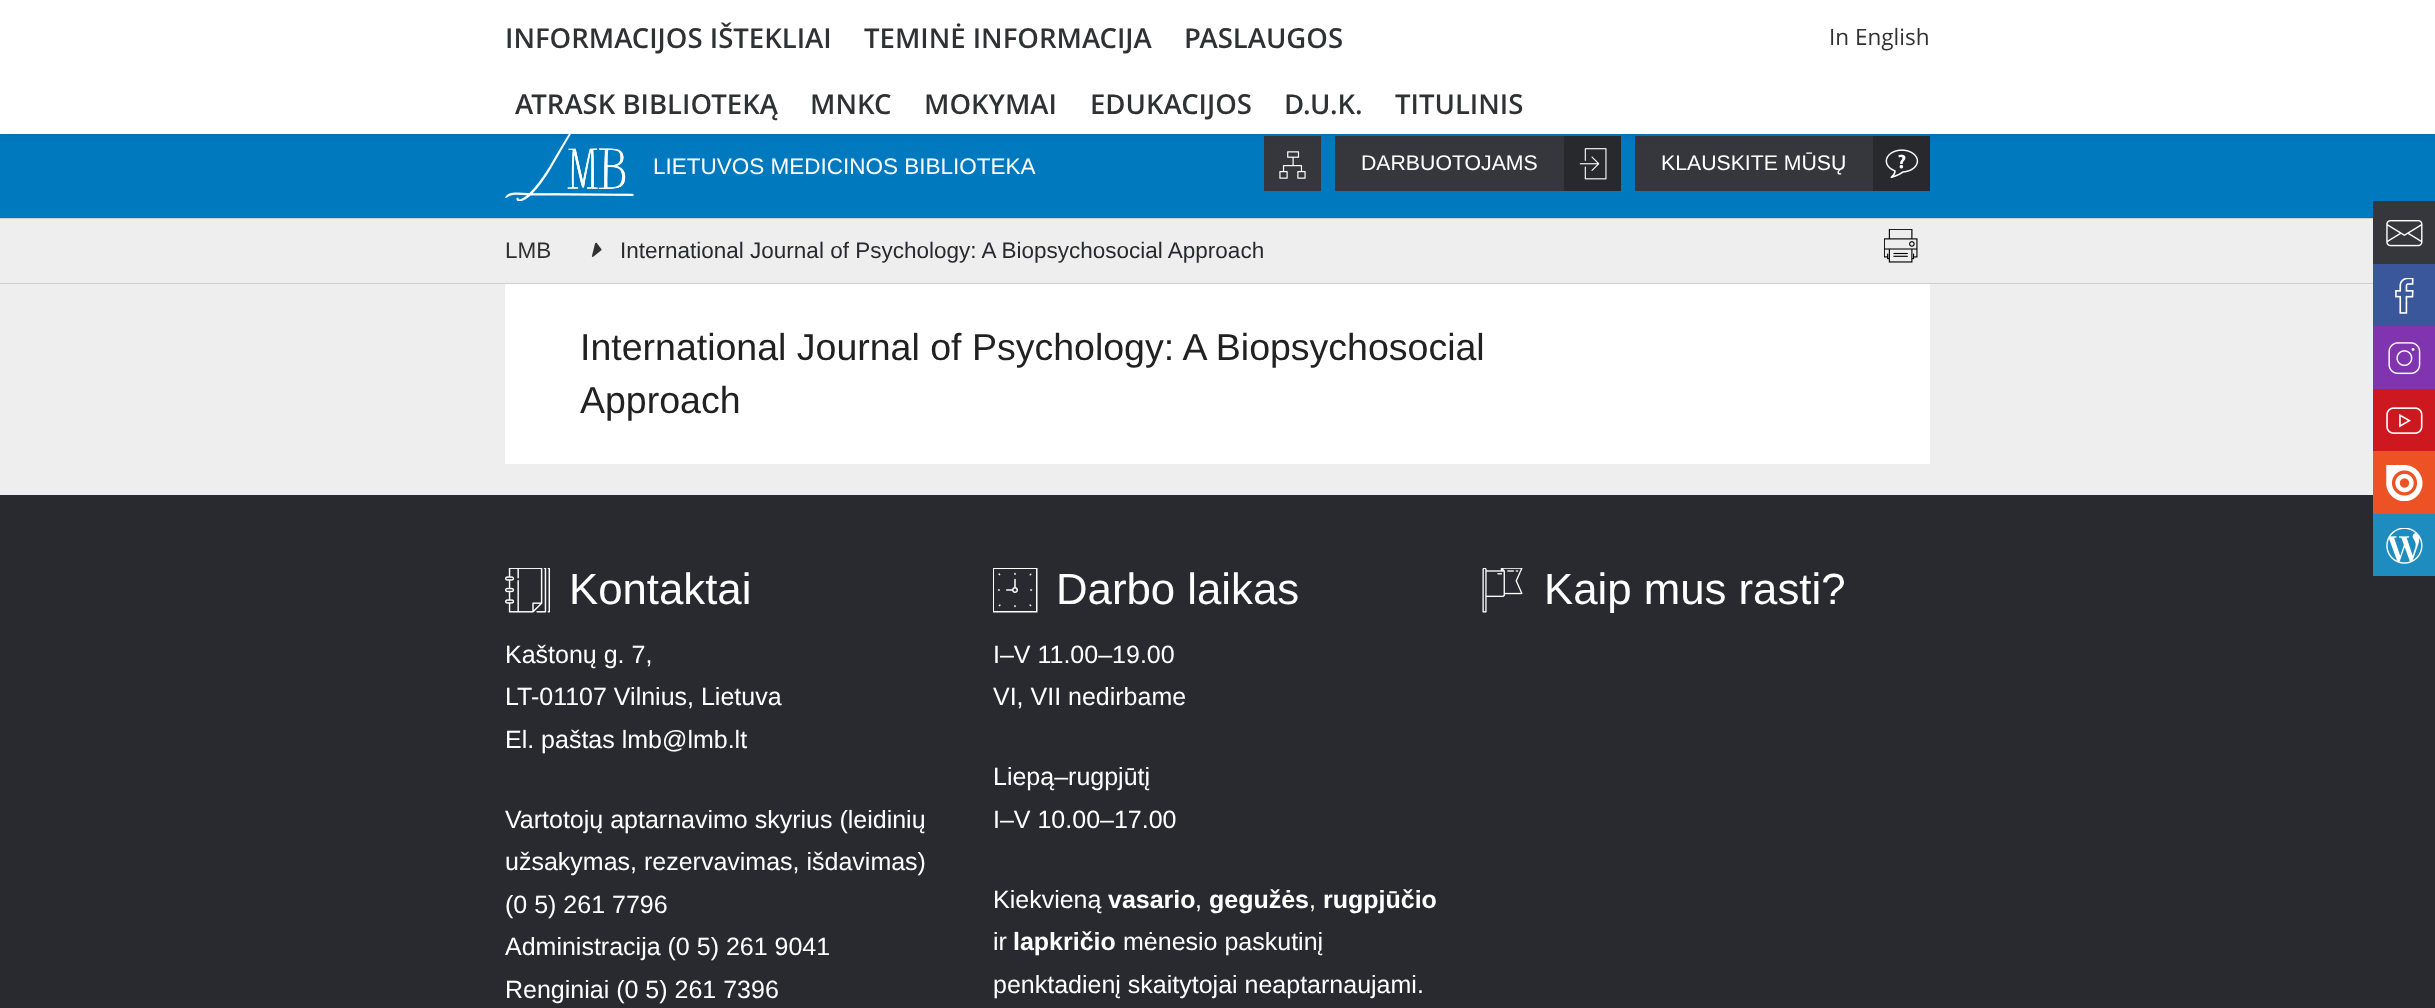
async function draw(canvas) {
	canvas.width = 2435;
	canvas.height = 1008;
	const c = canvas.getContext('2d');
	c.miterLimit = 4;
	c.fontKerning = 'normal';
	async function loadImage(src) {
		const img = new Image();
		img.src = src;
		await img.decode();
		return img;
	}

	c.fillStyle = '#eee';
	c.fillRect(0, 0, 2435, 1008);
	c.fillStyle = '#0079bf';
	c.fillRect(0, 134, 2435, 84);
	c.drawImage(await loadImage('img1.png'), 505, 134, 129, 67);
	for (const [x, y, w, h, color] of [
		[1264, 136, 57, 55, '#36373d'],
		[1335, 136, 229, 55, '#36373d'],
		[1564, 136, 57, 55, '#28292d'],
	]) {
		c.fillStyle = color;
		c.fillRect(x, y, w, h);
	}
	c.drawImage(await loadImage('img3.png'), 1579, 148, 28, 32);
	c.fillStyle = '#36373d';
	c.fillRect(1635, 136, 238, 55);
	c.fillStyle = '#28292d';
	c.fillRect(1873, 136, 57, 55);
	c.fillStyle = '#28282826';
	c.filter = 'blur(4.5px)';
	c.beginPath();
	c.rect(0, 0, 2435, 134);
	c.fill();
	c.filter = 'none';
	c.fillStyle = '#fff';
	c.fillRect(0, 0, 2435, 134);
	c.font = '600 27.5px Open Sans';
	c.fillStyle = '#303133';
	for (const [text, x, y] of [
		['INFORMACIJOS IŠTEKLIAI', 505, 48],
		['TEMINĖ INFORMACIJA', 864, 48],
		['PASLAUGOS', 1184, 48],
		['ATRASK BIBLIOTEKĄ', 515, 114],
		['MNKC', 810, 114],
		['MOKYMAI', 924, 114],
		['EDUKACIJOS', 1090, 114],
		['D.U.K.', 1284, 114],
		['TITULINIS', 1395, 114],
	]) {
		c.fillText(text, x, y);
	}
	c.font = '22.5px Open Sans';
	c.fillText('In English', 1829, 45);
	c.font = '22.5px Liberation Sans';
	c.fillStyle = '#fff';
	c.fillText('LIETUVOS MEDICINOS BIBLIOTEKA', 653, 174);
	c.drawImage(await loadImage('img2.png'), 1279, 151, 27, 28);
	c.font = '21.25px Liberation Sans';
	c.fillText('DARBUOTOJAMS', 1361, 170);
	c.fillText('KLAUSKITE MŪSŲ', 1661, 170);
	c.drawImage(await loadImage('img4.png'), 1885, 149, 34, 30);
	c.fillStyle = '#cecece';
	c.fillRect(0, 218, 2373, 1);
	c.fillRect(0, 283, 2373, 1);
	c.font = '22.5px Liberation Sans';
	c.fillStyle = '#303133';
	c.fillText('LMB', 505, 258);
	c.drawImage(await loadImage('img5.png'), 591, 242, 11, 15);
	c.fillStyle = '#28292d';
	c.fillText('International Journal of Psychology: A Biopsychosocial Approach', 620, 258);
	c.drawImage(await loadImage('img6.png'), 1884, 229, 34, 34);
	c.fillStyle = '#fff';
	c.fillRect(505, 284, 1425, 180);
	c.font = '37.5px Liberation Sans';
	c.fillStyle = '#212121';
	c.fillText('International Journal of Psychology: A Biopsychosocial', 580, 360);
	c.fillText('Approach', 580, 413);
	c.fillStyle = '#36373d';
	c.fillRect(2373, 201, 62, 63);
	c.drawImage(await loadImage('img7.png'), 2386, 220, 37, 27);
	c.fillStyle = '#39579a';
	c.fillRect(2373, 264, 62, 62);
	c.drawImage(await loadImage('img8.png'), 2395, 278, 19, 36);
	c.fillStyle = '#8134af';
	c.fillRect(2373, 326, 62, 63);
	c.drawImage(await loadImage('img9.png'), 2388, 342, 33, 33);
	c.fillStyle = '#cc181e';
	c.fillRect(2373, 389, 62, 62);
	c.drawImage(await loadImage('img10.png'), 2386, 407, 37, 27);
	c.fillStyle = '#292a30';
	c.fillRect(0, 495, 2435, 513);
	c.fillStyle = '#ed5225';
	c.fillRect(2373, 451, 62, 63);
	c.drawImage(await loadImage('img11.png'), 2386, 465, 37, 36);
	c.fillStyle = '#1e8cbe';
	c.fillRect(2373, 514, 62, 62);
	c.drawImage(await loadImage('img12.png'), 2386, 528, 37, 36);
	c.drawImage(await loadImage('img13.png'), 505, 568, 45, 45);
	c.font = '43.75px Liberation Sans';
	c.fillStyle = '#fff';
	c.fillText('Kontaktai', 569, 604);
	c.font = '25px Liberation Sans';
	for (const [text, x, y] of [
		['Kaštonų g. 7,', 505, 663],
		['LT-01107 Vilnius, Lietuva', 505, 705],
		['El. paštas lmb@lmb.lt', 505, 748],
		['Vartotojų aptarnavimo skyrius (leidinių', 505, 828],
		['užsakymas, rezervavimas, išdavimas)', 505, 870],
		['(0 5) 261 7796', 505, 913],
		['Administracija (0 5) 261 9041', 505, 955],
		['Renginiai (0 5) 261 7396', 505, 998],
	]) {
		c.fillText(text, x, y);
	}
	c.drawImage(await loadImage('img14.png'), 993, 568, 45, 45);
	c.font = '43.75px Liberation Sans';
	c.fillText('Darbo laikas', 1056, 604);
	c.font = '25px Liberation Sans';
	for (const [text, x, y] of [
		['I–V 11.00–19.00', 993, 663],
		['VI, VII nedirbame', 993, 705],
		['Liepą–rugpjūtį', 993, 785],
		['I–V 10.00–17.00', 993, 828],
		['Kiekvieną', 993, 908],
	]) {
		c.fillText(text, x, y);
	}
	c.font = 'bold 25px Liberation Sans';
	c.fillText('vasario', 1108, 908);
	c.font = '25px Liberation Sans';
	c.fillText(',', 1195, 908);
	c.font = 'bold 25px Liberation Sans';
	c.fillText('gegužės', 1209, 908);
	c.font = '25px Liberation Sans';
	c.fillText(',', 1309, 908);
	c.font = 'bold 25px Liberation Sans';
	c.fillText('rugpjūčio', 1323, 908);
	c.font = '25px Liberation Sans';
	c.fillText('ir', 993, 950);
	c.font = 'bold 25px Liberation Sans';
	c.fillText('lapkričio', 1013, 950);
	c.font = '25px Liberation Sans';
	c.fillText('mėnesio paskutinį', 1123, 950);
	c.fillText('penktadienį skaitytojai neaptarnaujami.', 993, 993);
	c.drawImage(await loadImage('img15.png'), 1482, 568, 41, 45);
	c.font = '43.75px Liberation Sans';
	c.fillText('Kaip mus rasti?', 1544, 604);
}

draw(document.querySelector('canvas'));
